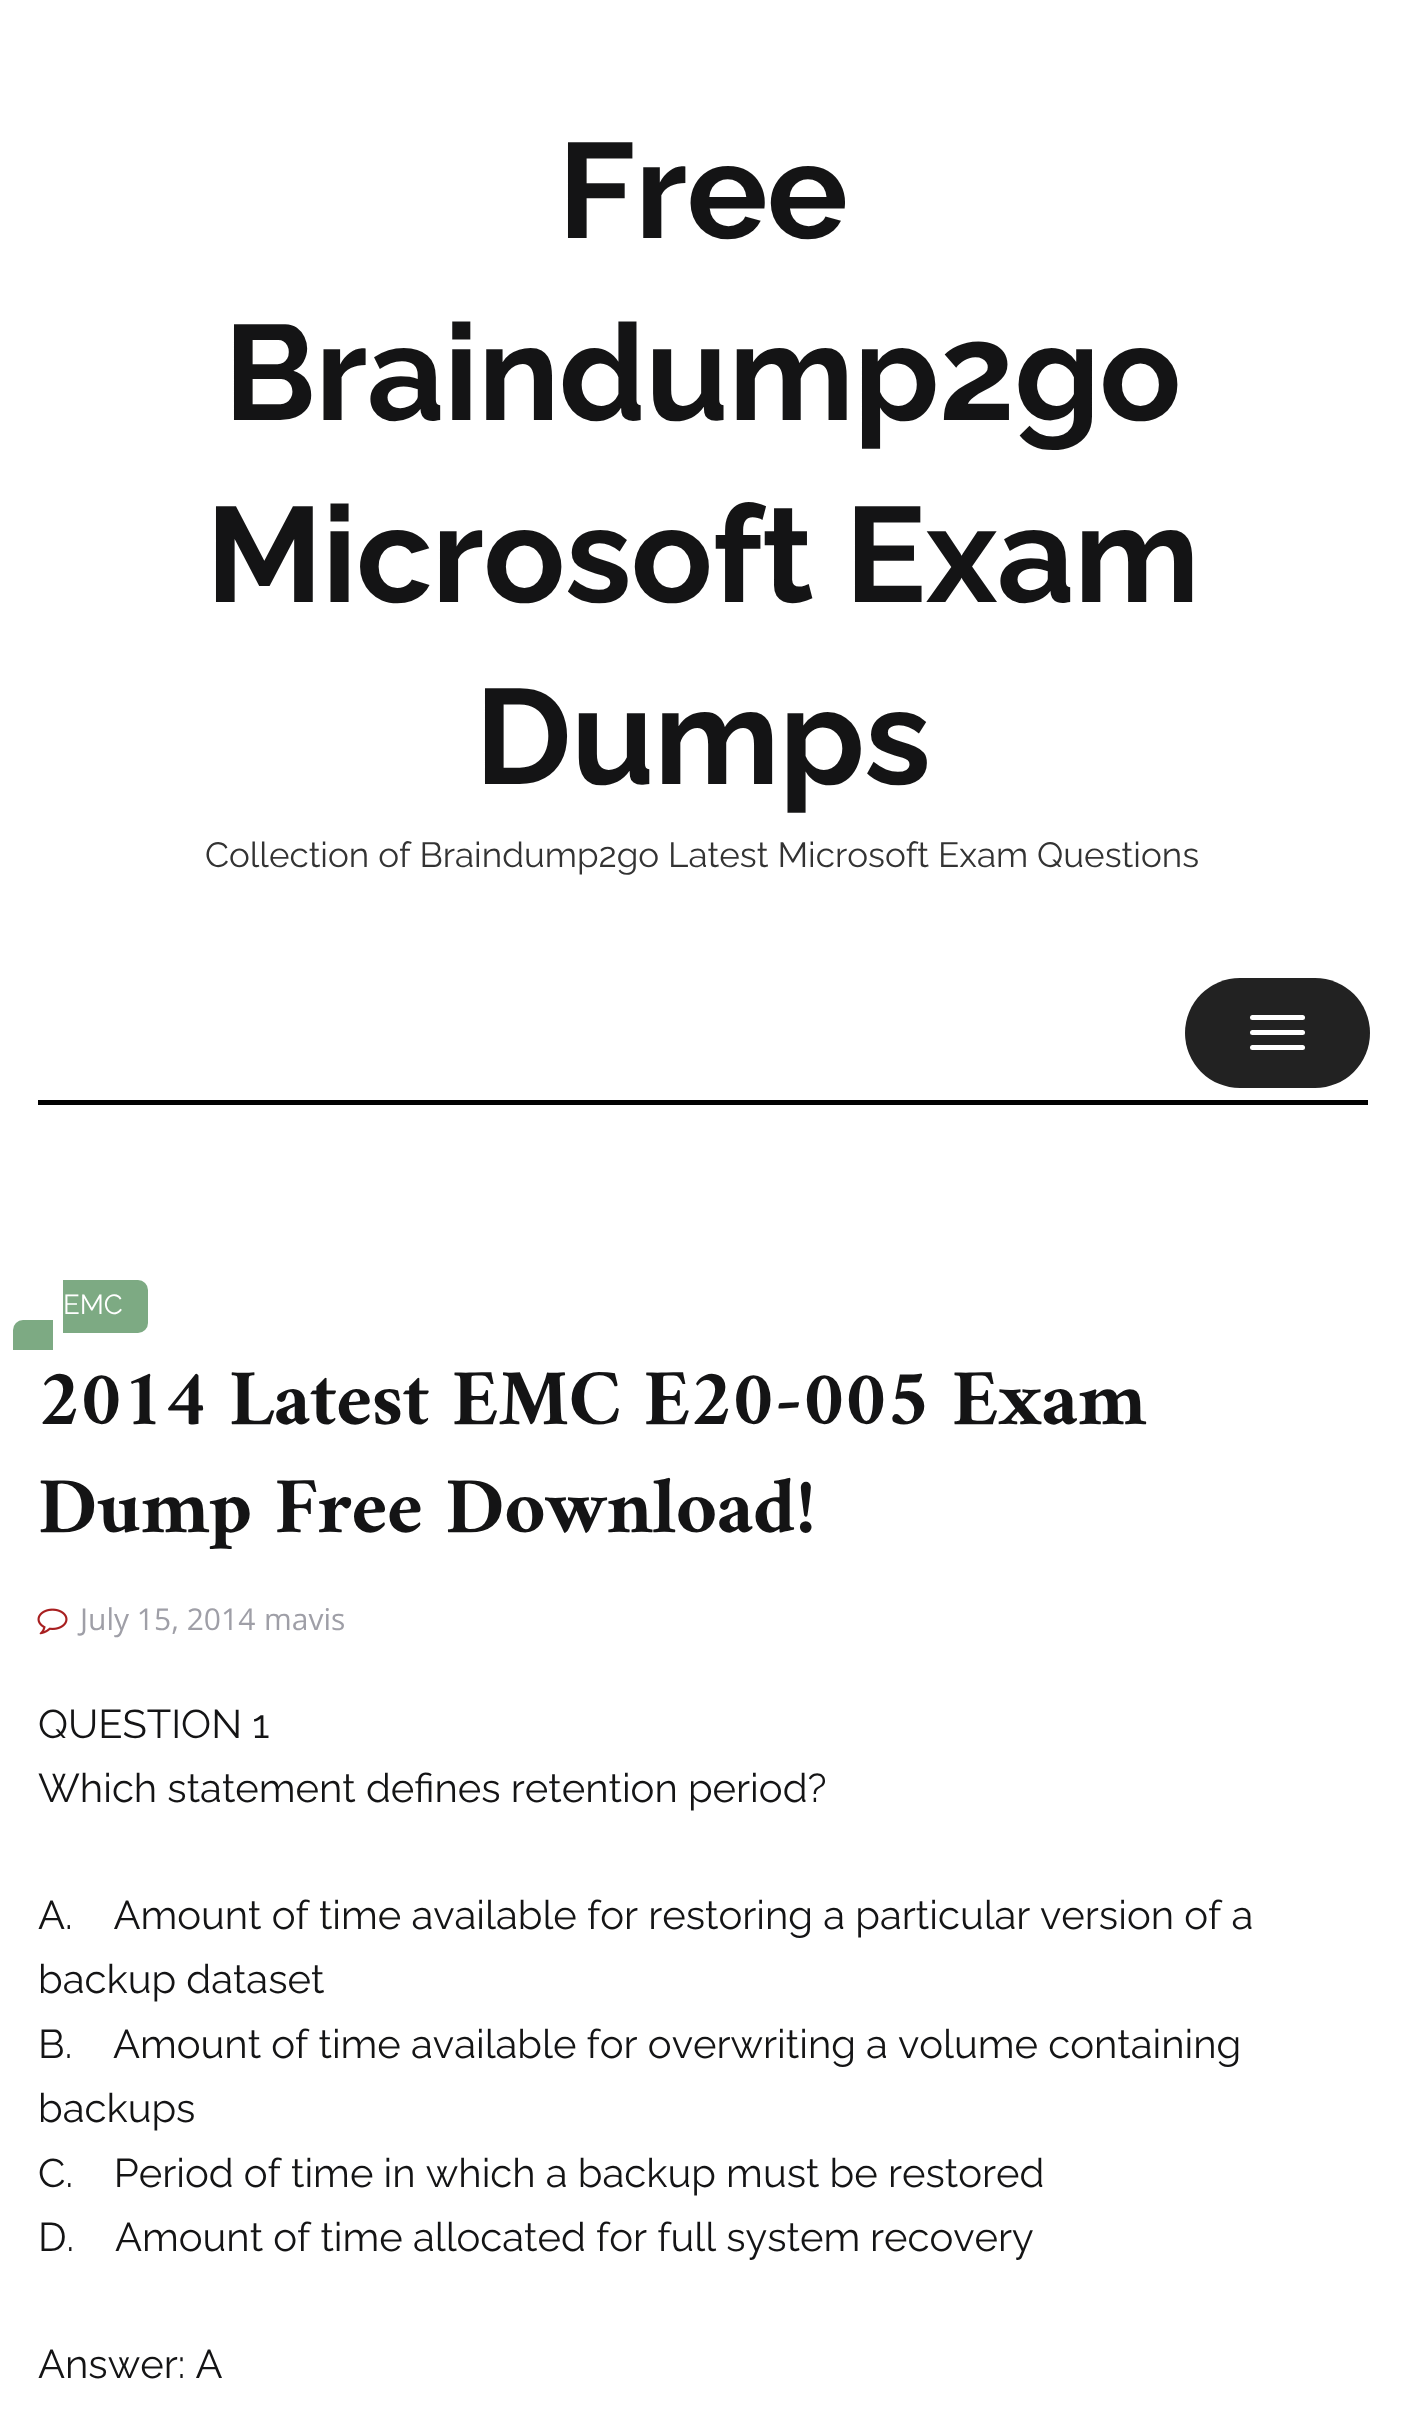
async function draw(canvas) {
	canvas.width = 1405;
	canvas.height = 2436;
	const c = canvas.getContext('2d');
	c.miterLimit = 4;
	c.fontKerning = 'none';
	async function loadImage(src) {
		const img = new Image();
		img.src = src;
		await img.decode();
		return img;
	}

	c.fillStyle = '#fff';
	c.fillRect(0, 0, 1405, 2436);
	c.letterSpacing = '-0.5px';
	c.font = 'bold 135px Raleway';
	c.fillStyle = '#141415';
	for (const [text, x, y] of [
		['Free', 558, 238],
		['Braindump2go', 224, 420],
		['Microsoft Exam', 206, 602],
		['Dumps', 475, 784],
	]) {
		c.fillText(text, x, y);
	}
	c.letterSpacing = '0px';
	c.font = '35px Raleway';
	c.fillStyle = '#333';
	c.fillText('Collection of Braindump2go Latest Microsoft Exam Questions', 205, 867);
	c.fillStyle = '#020202';
	c.fillRect(38, 1100, 1330, 5);
	c.fillStyle = '#222';
	c.beginPath();
	c.roundRect(1185, 978, 185, 110, 55);
	c.fill();
	c.fillStyle = '#fff';
	c.beginPath();
	c.roundRect(1250, 1015, 55, 5, 2.5);
	c.fill();
	c.beginPath();
	c.roundRect(1250, 1030, 55, 5, 2.5);
	c.fill();
	c.beginPath();
	c.roundRect(1250, 1045, 55, 5, 2.5);
	c.fill();
	c.fillStyle = '#7daa83';
	c.beginPath();
	c.roundRect(63, 1280, 85, 53, [0, 10, 10, 0]);
	c.fill();
	c.font = '27.5px Raleway';
	c.fillStyle = '#fff';
	c.fillText('EMC', 63, 1314);
	c.fillStyle = '#7daa83';
	c.beginPath();
	c.roundRect(13, 1320, 40, 30, [10, 0, 0, 0]);
	c.fill();
	c.letterSpacing = '-0.5px';
	c.font = 'bold 80px Amiri';
	c.fillStyle = '#141415';
	c.fillText('2014 Latest EMC E20-005 Exam', 38, 1424);
	c.fillText('Dump Free Download!', 38, 1532);
	c.drawImage(await loadImage('img1.png'), 37, 1608, 31, 27);
	c.letterSpacing = '0px';
	c.font = '30px Open Sans';
	c.fillStyle = '#9f9fa7';
	c.fillText('July 15, 2014', 80, 1630);
	c.fillText('mavis', 264, 1630);
	c.font = '40px Raleway';
	c.fillStyle = '#141415';
	for (const [text, x, y] of [
		['QUESTION 1', 38, 1738],
		['Which statement defines retention period?', 38, 1802],
		['A.    Amount of time available for restoring a particular', 38, 1929],
		['version of a', 1040, 1929],
		['backup dataset', 38, 1993],
		['B.    Amount of time available for overwriting a', 38, 2058],
		['volume containing', 898, 2058],
		['backups', 38, 2122],
		['C.    Period of time in which a backup must be restored', 38, 2187],
		['D.    Amount of time allocated for full system', 38, 2251],
		['recovery', 870, 2251],
		['Answer: A', 38, 2378],
	]) {
		c.fillText(text, x, y);
	}
}

draw(document.querySelector('canvas'));
